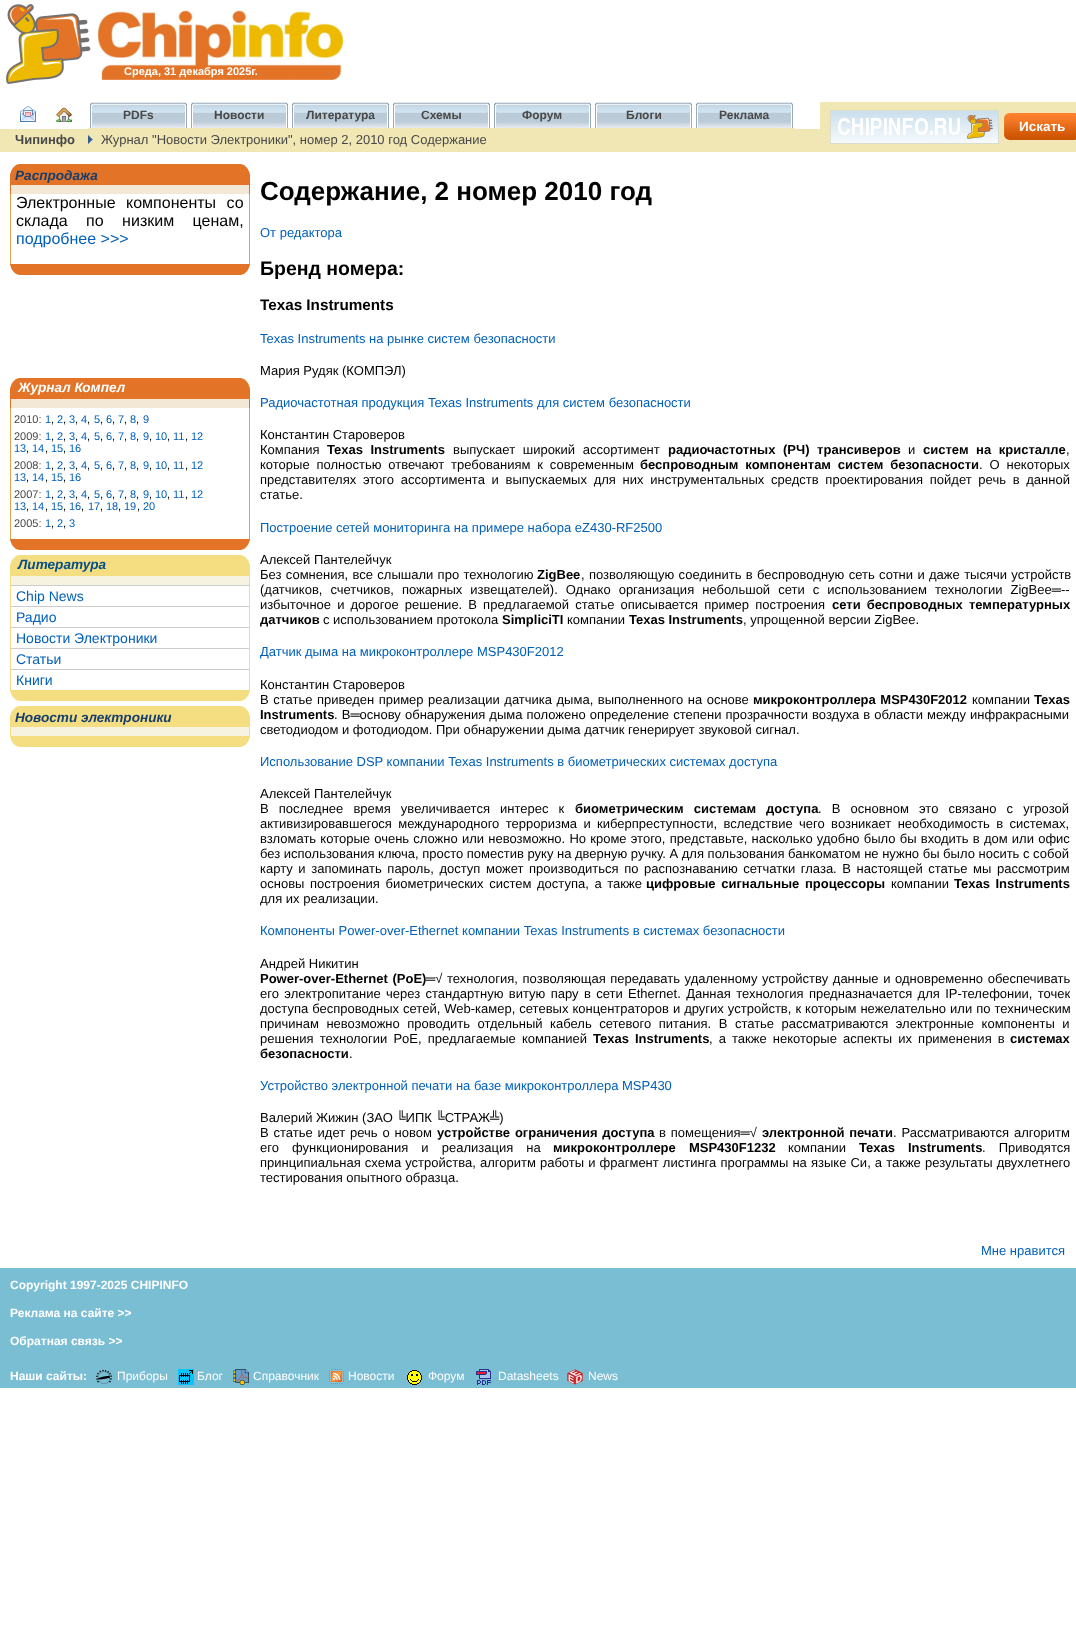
async function draw(canvas) {
	canvas.width = 1076;
	canvas.height = 1634;
	const c = canvas.getContext('2d');
	c.miterLimit = 4;
	c.fontKerning = 'normal';
	async function loadImage(src) {
		const img = new Image();
		img.src = src;
		await img.decode();
		return img;
	}

	c.fillStyle = '#fff';
	c.fillRect(0, 0, 1076, 1634);
	c.drawImage(await loadImage('img1.png'), 6, 4, 337, 80);
	c.font = 'bold 11px Liberation Sans';
	c.fillText('Среда, 31 декабря 2025г.', 124, 75);
	c.drawImage(await loadImage('img2.png'), 20, 106, 16, 16);
	c.drawImage(await loadImage('img3.png'), 56, 107, 16, 15);
	c.drawImage(await loadImage('img4.png'), 88, 102, 101, 26);
	c.font = 'bold 12px Liberation Sans';
	c.fillStyle = '#484848';
	c.fillText('PDFs', 123, 119);
	c.drawImage(await loadImage('img4.png'), 189, 102, 101, 26);
	c.fillText('Новости', 214, 119);
	c.drawImage(await loadImage('img4.png'), 290, 102, 101, 26);
	c.fillText('Литература', 306, 119);
	c.drawImage(await loadImage('img4.png'), 391, 102, 101, 26);
	c.fillText('Схемы', 421, 119);
	c.drawImage(await loadImage('img4.png'), 492, 102, 101, 26);
	c.fillText('Форум', 522, 119);
	c.drawImage(await loadImage('img4.png'), 593, 102, 101, 26);
	c.fillText('Блоги', 626, 119);
	c.drawImage(await loadImage('img4.png'), 694, 102, 101, 26);
	c.fillText('Реклама', 719, 119);
	for (const [x, y, w, h, color] of [
		[0, 128, 820, 24, '#f1e7b5'],
		[0, 128, 88, 1, '#fff'],
		[795, 128, 25, 1, '#fff'],
		[820, 102, 256, 50, '#f1e7b5'],
	]) {
		c.fillStyle = color;
		c.fillRect(x, y, w, h);
	}
	c.drawImage(await loadImage('img5.png'), 831, 111, 167, 32);
	c.strokeStyle = '#d9ddcf';
	c.strokeRect(830.5, 110.5, 168, 33);
	c.drawImage(await loadImage('img6.png'), 1004, 113, 72, 27);
	c.font = 'bold 13.5px Liberation Sans';
	c.fillStyle = '#fff';
	c.fillText('Искать', 1019, 131);
	c.font = 'bold 13px Liberation Sans';
	c.fillStyle = '#484848';
	c.fillText('Чипинфо', 15, 144);
	c.drawImage(await loadImage('img7.png'), 88, 135, 5, 9);
	c.font = '13px Liberation Sans';
	c.fillText('Журнал "Новости Электроники", номер 2, 2010 год Содержание', 101, 144);
	c.drawImage(await loadImage('img8.png'), 10, 164, 240, 30);
	c.font = 'italic bold 13.6px Liberation Sans';
	c.fillStyle = '#153e6e';
	c.fillText('Распродажа', 15, 180);
	c.fillStyle = '#e2a248';
	c.fillRect(249, 194, 1, 70);
	c.fillRect(10, 194, 1, 70);
	c.wordSpacing = '6px';
	c.font = '16px Liberation Sans';
	c.fillStyle = '#000';
	c.fillText('Электронные компоненты со', 16, 208);
	c.wordSpacing = '14px';
	c.fillText('склада по низким ценам,', 16, 226);
	c.wordSpacing = '0px';
	c.fillStyle = '#005fb8';
	c.fillText('подробнее >>>', 16, 244);
	c.drawImage(await loadImage('img9.png'), 10, 264, 240, 11);
	c.drawImage(await loadImage('img8.png'), 10, 378, 240, 30);
	c.font = 'italic bold 13.6px Liberation Sans';
	c.fillStyle = '#fff';
	c.fillText('Журнал Компел', 18, 392);
	c.fillStyle = '#e2a248';
	c.fillRect(249, 408, 1, 131);
	c.fillRect(10, 408, 1, 131);
	c.font = '11px Liberation Sans';
	c.fillStyle = '#484848';
	c.fillText('2010:', 14, 423);
	c.fillStyle = '#005fb8';
	c.fillText('1', 45, 423);
	c.fillStyle = '#000';
	c.fillText(',', 51, 423);
	c.fillStyle = '#005fb8';
	c.fillText('2', 57, 423);
	c.fillStyle = '#000';
	c.fillText(',', 63, 423);
	c.fillStyle = '#005fb8';
	c.fillText('3', 69, 423);
	c.fillStyle = '#000';
	c.fillText(',', 75, 423);
	c.fillStyle = '#005fb8';
	c.fillText('4', 81, 423);
	c.fillStyle = '#000';
	c.fillText(',', 87, 423);
	c.fillStyle = '#005fb8';
	c.fillText('5', 94, 423);
	c.fillStyle = '#000';
	c.fillText(',', 100, 423);
	c.fillStyle = '#005fb8';
	c.fillText('6', 106, 423);
	c.fillStyle = '#000';
	c.fillText(',', 112, 423);
	c.fillStyle = '#005fb8';
	c.fillText('7', 118, 423);
	c.fillStyle = '#000';
	c.fillText(',', 124, 423);
	c.fillStyle = '#005fb8';
	c.fillText('8', 130, 423);
	c.fillStyle = '#000';
	c.fillText(',', 136, 423);
	c.fillStyle = '#005fb8';
	c.fillText('9', 143, 423);
	c.fillStyle = '#484848';
	c.fillText('2009:', 14, 440);
	c.fillStyle = '#005fb8';
	c.fillText('1', 45, 440);
	c.fillStyle = '#000';
	c.fillText(',', 51, 440);
	c.fillStyle = '#005fb8';
	c.fillText('2', 57, 440);
	c.fillStyle = '#000';
	c.fillText(',', 63, 440);
	c.fillStyle = '#005fb8';
	c.fillText('3', 69, 440);
	c.fillStyle = '#000';
	c.fillText(',', 75, 440);
	c.fillStyle = '#005fb8';
	c.fillText('4', 81, 440);
	c.fillStyle = '#000';
	c.fillText(',', 87, 440);
	c.fillStyle = '#005fb8';
	c.fillText('5', 94, 440);
	c.fillStyle = '#000';
	c.fillText(',', 100, 440);
	c.fillStyle = '#005fb8';
	c.fillText('6', 106, 440);
	c.fillStyle = '#000';
	c.fillText(',', 112, 440);
	c.fillStyle = '#005fb8';
	c.fillText('7', 118, 440);
	c.fillStyle = '#000';
	c.fillText(',', 124, 440);
	c.fillStyle = '#005fb8';
	c.fillText('8', 130, 440);
	c.fillStyle = '#000';
	c.fillText(',', 136, 440);
	c.fillStyle = '#005fb8';
	c.fillText('9', 143, 440);
	c.fillStyle = '#000';
	c.fillText(',', 149, 440);
	c.fillStyle = '#005fb8';
	c.fillText('10', 155, 440);
	c.fillStyle = '#000';
	c.fillText(',', 167, 440);
	c.fillStyle = '#005fb8';
	c.fillText('11', 173, 440);
	c.fillStyle = '#000';
	c.fillText(',', 185, 440);
	c.fillStyle = '#005fb8';
	c.fillText('12', 191, 440);
	c.fillText('13', 14, 452);
	c.fillStyle = '#000';
	c.fillText(',', 26, 452);
	c.fillStyle = '#005fb8';
	c.fillText('14', 32, 452);
	c.fillStyle = '#000';
	c.fillText(',', 45, 452);
	c.fillStyle = '#005fb8';
	c.fillText('15', 51, 452);
	c.fillStyle = '#000';
	c.fillText(',', 63, 452);
	c.fillStyle = '#005fb8';
	c.fillText('16', 69, 452);
	c.fillStyle = '#484848';
	c.fillText('2008:', 14, 469);
	c.fillStyle = '#005fb8';
	c.fillText('1', 45, 469);
	c.fillStyle = '#000';
	c.fillText(',', 51, 469);
	c.fillStyle = '#005fb8';
	c.fillText('2', 57, 469);
	c.fillStyle = '#000';
	c.fillText(',', 63, 469);
	c.fillStyle = '#005fb8';
	c.fillText('3', 69, 469);
	c.fillStyle = '#000';
	c.fillText(',', 75, 469);
	c.fillStyle = '#005fb8';
	c.fillText('4', 81, 469);
	c.fillStyle = '#000';
	c.fillText(',', 87, 469);
	c.fillStyle = '#005fb8';
	c.fillText('5', 94, 469);
	c.fillStyle = '#000';
	c.fillText(',', 100, 469);
	c.fillStyle = '#005fb8';
	c.fillText('6', 106, 469);
	c.fillStyle = '#000';
	c.fillText(',', 112, 469);
	c.fillStyle = '#005fb8';
	c.fillText('7', 118, 469);
	c.fillStyle = '#000';
	c.fillText(',', 124, 469);
	c.fillStyle = '#005fb8';
	c.fillText('8', 130, 469);
	c.fillStyle = '#000';
	c.fillText(',', 136, 469);
	c.fillStyle = '#005fb8';
	c.fillText('9', 143, 469);
	c.fillStyle = '#000';
	c.fillText(',', 149, 469);
	c.fillStyle = '#005fb8';
	c.fillText('10', 155, 469);
	c.fillStyle = '#000';
	c.fillText(',', 167, 469);
	c.fillStyle = '#005fb8';
	c.fillText('11', 173, 469);
	c.fillStyle = '#000';
	c.fillText(',', 185, 469);
	c.fillStyle = '#005fb8';
	c.fillText('12', 191, 469);
	c.fillText('13', 14, 481);
	c.fillStyle = '#000';
	c.fillText(',', 26, 481);
	c.fillStyle = '#005fb8';
	c.fillText('14', 32, 481);
	c.fillStyle = '#000';
	c.fillText(',', 45, 481);
	c.fillStyle = '#005fb8';
	c.fillText('15', 51, 481);
	c.fillStyle = '#000';
	c.fillText(',', 63, 481);
	c.fillStyle = '#005fb8';
	c.fillText('16', 69, 481);
	c.fillStyle = '#484848';
	c.fillText('2007:', 14, 498);
	c.fillStyle = '#005fb8';
	c.fillText('1', 45, 498);
	c.fillStyle = '#000';
	c.fillText(',', 51, 498);
	c.fillStyle = '#005fb8';
	c.fillText('2', 57, 498);
	c.fillStyle = '#000';
	c.fillText(',', 63, 498);
	c.fillStyle = '#005fb8';
	c.fillText('3', 69, 498);
	c.fillStyle = '#000';
	c.fillText(',', 75, 498);
	c.fillStyle = '#005fb8';
	c.fillText('4', 81, 498);
	c.fillStyle = '#000';
	c.fillText(',', 87, 498);
	c.fillStyle = '#005fb8';
	c.fillText('5', 94, 498);
	c.fillStyle = '#000';
	c.fillText(',', 100, 498);
	c.fillStyle = '#005fb8';
	c.fillText('6', 106, 498);
	c.fillStyle = '#000';
	c.fillText(',', 112, 498);
	c.fillStyle = '#005fb8';
	c.fillText('7', 118, 498);
	c.fillStyle = '#000';
	c.fillText(',', 124, 498);
	c.fillStyle = '#005fb8';
	c.fillText('8', 130, 498);
	c.fillStyle = '#000';
	c.fillText(',', 136, 498);
	c.fillStyle = '#005fb8';
	c.fillText('9', 143, 498);
	c.fillStyle = '#000';
	c.fillText(',', 149, 498);
	c.fillStyle = '#005fb8';
	c.fillText('10', 155, 498);
	c.fillStyle = '#000';
	c.fillText(',', 167, 498);
	c.fillStyle = '#005fb8';
	c.fillText('11', 173, 498);
	c.fillStyle = '#000';
	c.fillText(',', 185, 498);
	c.fillStyle = '#005fb8';
	c.fillText('12', 191, 498);
	c.fillText('13', 14, 510);
	c.fillStyle = '#000';
	c.fillText(',', 26, 510);
	c.fillStyle = '#005fb8';
	c.fillText('14', 32, 510);
	c.fillStyle = '#000';
	c.fillText(',', 45, 510);
	c.fillStyle = '#005fb8';
	c.fillText('15', 51, 510);
	c.fillStyle = '#000';
	c.fillText(',', 63, 510);
	c.fillStyle = '#005fb8';
	c.fillText('16', 69, 510);
	c.fillStyle = '#000';
	c.fillText(',', 81, 510);
	c.fillStyle = '#005fb8';
	c.fillText('17', 88, 510);
	c.fillStyle = '#000';
	c.fillText(',', 100, 510);
	c.fillStyle = '#005fb8';
	c.fillText('18', 106, 510);
	c.fillStyle = '#000';
	c.fillText(',', 118, 510);
	c.fillStyle = '#005fb8';
	c.fillText('19', 124, 510);
	c.fillStyle = '#000';
	c.fillText(',', 137, 510);
	c.fillStyle = '#005fb8';
	c.fillText('20', 143, 510);
	c.fillStyle = '#484848';
	c.fillText('2005:', 14, 527);
	c.fillStyle = '#005fb8';
	c.fillText('1', 45, 527);
	c.fillStyle = '#000';
	c.fillText(',', 51, 527);
	c.fillStyle = '#005fb8';
	c.fillText('2', 57, 527);
	c.fillStyle = '#000';
	c.fillText(',', 63, 527);
	c.fillStyle = '#005fb8';
	c.fillText('3', 69, 527);
	c.drawImage(await loadImage('img9.png'), 10, 539, 240, 11);
	c.drawImage(await loadImage('img10.png'), 10, 555, 240, 30);
	c.font = 'italic bold 13.6px Liberation Sans';
	c.fillStyle = '#004e8a';
	c.fillText('Литература', 18, 569);
	for (const [x, y, w, h, color] of [
		[249, 585, 1, 105, '#f5de81'],
		[10, 585, 1, 105, '#f5de81'],
		[11, 585, 238, 1, '#ccc'],
	]) {
		c.fillStyle = color;
		c.fillRect(x, y, w, h);
	}
	c.font = '14px Liberation Sans';
	c.fillStyle = '#005fb8';
	c.fillText('Chip News', 16, 601);
	c.fillStyle = '#ccc';
	c.fillRect(11, 606, 238, 1);
	c.fillStyle = '#005fb8';
	c.fillText('Радио', 16, 622);
	c.fillStyle = '#ccc';
	c.fillRect(11, 627, 238, 1);
	c.fillStyle = '#005fb8';
	c.fillText('Новости Электроники', 16, 643);
	c.fillStyle = '#ccc';
	c.fillRect(11, 648, 238, 1);
	c.fillStyle = '#005fb8';
	c.fillText('Статьи', 16, 664);
	c.fillStyle = '#ccc';
	c.fillRect(11, 669, 238, 1);
	c.fillStyle = '#005fb8';
	c.fillText('Книги', 16, 685);
	c.drawImage(await loadImage('img11.png'), 10, 690, 240, 11);
	c.drawImage(await loadImage('img10.png'), 10, 706, 240, 30);
	c.font = 'italic bold 13.6px Liberation Sans';
	c.fillStyle = '#153e6e';
	c.fillText('Новости электроники', 15, 722);
	c.drawImage(await loadImage('img11.png'), 10, 736, 240, 11);
	c.font = 'bold 26px Liberation Sans';
	c.fillStyle = '#000';
	c.fillText('Содержание, 2 номер 2010 год', 260, 200);
	c.font = '13px Liberation Sans';
	c.fillStyle = '#005fb8';
	c.fillText('От редактора', 260, 237);
	c.font = 'bold 19.5px Liberation Sans';
	c.fillStyle = '#000';
	c.fillText('Бренд номера:', 260, 275);
	c.font = 'bold 15.25px Liberation Sans';
	c.fillText('Texas Instruments', 260, 310);
	c.font = '13px Liberation Sans';
	c.fillStyle = '#005fb8';
	c.fillText('Texas Instruments на рынке систем безопасности', 260, 343);
	c.fillStyle = '#000';
	c.fillText('Мария Рудяк (КОМПЭЛ)', 260, 375);
	c.fillStyle = '#005fb8';
	c.fillText('Радиочастотная продукция Texas Instruments для систем безопасности', 260, 407);
	c.fillStyle = '#000';
	c.fillText('Константин Староверов', 260, 439);
	c.fillText('Компания', 260, 454);
	c.wordSpacing = '4px';
	c.font = 'bold 13px Liberation Sans';
	c.fillText('Texas Instruments', 327, 454);
	c.font = '13px Liberation Sans';
	c.fillText('выпускает широкий ассортимент', 453, 454);
	c.font = 'bold 13px Liberation Sans';
	c.fillText('радиочастотных (РЧ) трансиверов', 668, 454);
	c.wordSpacing = '0px';
	c.font = '13px Liberation Sans';
	c.fillText('и', 908, 454);
	c.wordSpacing = '4px';
	c.font = 'bold 13px Liberation Sans';
	c.fillText('систем на кристалле', 923, 454);
	c.wordSpacing = '0px';
	c.font = '13px Liberation Sans';
	c.fillText(',', 1066, 454);
	c.wordSpacing = '3.25px';
	c.fillText('которые полностью отвечают требованиям к современным', 260, 469);
	c.font = 'bold 13px Liberation Sans';
	c.fillText('беспроводным компонентам систем безопасности', 640, 469);
	c.font = '13px Liberation Sans';
	c.fillText('. О некоторых', 979, 469);
	c.wordSpacing = '3.1px';
	c.fillText('представителях этого ассортимента и выпускаемых для них инструментальных средств проектирования пойдет речь в данной', 260, 484);
	c.wordSpacing = '0px';
	c.fillText('статье.', 260, 499);
	c.fillStyle = '#005fb8';
	c.fillText('Построение сетей мониторинга на примере набора eZ430-RF2500', 260, 532);
	c.fillStyle = '#000';
	c.fillText('Алексей Пантелейчук', 260, 564);
	c.wordSpacing = '0.75px';
	c.fillText('Без сомнения, все слышали про технологию', 260, 579);
	c.wordSpacing = '0px';
	c.font = 'bold 13px Liberation Sans';
	c.fillText('ZigBee', 537, 579);
	c.wordSpacing = '0.75px';
	c.font = '13px Liberation Sans';
	c.fillText(', позволяющую соединить в беспроводную сеть сотни и даже тысячи устройств', 581, 579);
	c.wordSpacing = '4.4px';
	c.fillText('(датчиков, счетчиков, пожарных извещателей). Однако организация небольшой сети с использованием технологии ZigBee═--', 260, 594);
	c.wordSpacing = '2.5px';
	c.fillText('избыточное и дорогое решение. В предлагаемой статье описывается пример построения', 260, 609);
	c.font = 'bold 13px Liberation Sans';
	c.fillText('сети беспроводных температурных', 832, 609);
	c.wordSpacing = '0px';
	c.fillText('датчиков', 260, 624);
	c.font = '13px Liberation Sans';
	c.fillText('с использованием протокола', 323, 624);
	c.font = 'bold 13px Liberation Sans';
	c.fillText('SimpliciTI', 502, 624);
	c.font = '13px Liberation Sans';
	c.fillText('компании', 567, 624);
	c.font = 'bold 13px Liberation Sans';
	c.fillText('Texas Instruments', 629, 624);
	c.font = '13px Liberation Sans';
	c.fillText(', упрощенной версии ZigBee.', 743, 624);
	c.fillStyle = '#005fb8';
	c.fillText('Датчик дыма на микроконтроллере MSP430F2012', 260, 656);
	c.fillStyle = '#000';
	c.fillText('Константин Староверов', 260, 689);
	c.wordSpacing = '0.9px';
	c.fillText('В статье приведен пример реализации датчика дыма, выполненного на основе', 260, 704);
	c.font = 'bold 13px Liberation Sans';
	c.fillText('микроконтроллера MSP430F2012', 753, 704);
	c.wordSpacing = '0px';
	c.font = '13px Liberation Sans';
	c.fillText('компании', 972, 704);
	c.font = 'bold 13px Liberation Sans';
	c.fillText('Texas', 1034, 704);
	c.fillText('Instruments', 260, 719);
	c.wordSpacing = '0.5px';
	c.font = '13px Liberation Sans';
	c.fillText('. В═основу обнаружения дыма положено определение степени прозрачности воздуха в области между инфракрасными', 334, 719);
	c.wordSpacing = '0px';
	c.fillText('светодиодом и фотодиодом. При обнаружении дыма датчик генерирует звуковой сигнал.', 260, 734);
	c.fillStyle = '#005fb8';
	c.fillText('Использование DSP компании Texas Instruments в биометрических системах доступа', 260, 766);
	c.fillStyle = '#000';
	c.fillText('Алексей Пантелейчук', 260, 798);
	c.wordSpacing = '6.5px';
	c.fillText('В последнее время увеличивается интерес к', 260, 813);
	c.font = 'bold 13px Liberation Sans';
	c.fillText('биометрическим системам доступа', 575, 813);
	c.font = '13px Liberation Sans';
	c.fillText('. В основном это связано с угрозой', 818, 813);
	c.wordSpacing = '2.75px';
	c.fillText('активизировавшегося международного терроризма и киберпреступности, вследствие чего возникает необходимость в системах,', 260, 828);
	c.wordSpacing = '0.6px';
	c.fillText('взломать которые очень сложно или невозможно. Но кроме этого, представьте, насколько удобно было бы входить в дом или офис', 260, 843);
	c.wordSpacing = '0px';
	c.fillText('без использования ключа, просто поместив руку на дверную ручку. А для пользования банкоматом не нужно бы было носить с собой', 260, 858);
	c.wordSpacing = '2px';
	c.fillText('карту и запоминать пароль, доступ может производиться по распознаванию сетчатки глаза. В настоящей статье мы рассмотрим', 260, 873);
	c.fillText('основы построения биометрических систем доступа, а также', 260, 888);
	c.font = 'bold 13px Liberation Sans';
	c.fillText('цифровые сигнальные процессоры', 646, 888);
	c.wordSpacing = '0px';
	c.font = '13px Liberation Sans';
	c.fillText('компании', 891, 888);
	c.wordSpacing = '2px';
	c.font = 'bold 13px Liberation Sans';
	c.fillText('Texas Instruments', 954, 888);
	c.wordSpacing = '0px';
	c.font = '13px Liberation Sans';
	c.fillText('для их реализации.', 260, 903);
	c.fillStyle = '#005fb8';
	c.fillText('Компоненты Power-over-Ethernet компании Texas Instruments в системах безопасности', 260, 935);
	c.fillStyle = '#000';
	c.fillText('Андрей Никитин', 260, 968);
	c.wordSpacing = '1px';
	c.font = 'bold 13px Liberation Sans';
	c.fillText('Power-over-Ethernet (PoE)', 260, 983);
	c.font = '13px Liberation Sans';
	c.fillText('═√ технология, позволяющая передавать удаленному устройству данные и одновременно обеспечивать', 426, 983);
	c.wordSpacing = '1.75px';
	c.fillText('его электропитание через стандартную витую пару в сети Ethernet. Данная технология предназначается для IP-телефонии, точек', 260, 998);
	c.wordSpacing = '0.4px';
	c.fillText('доступа беспроводных сетей, Web-камер, сетевых концентраторов и других устройств, к которым нежелательно или по техническим', 260, 1013);
	c.wordSpacing = '3.9px';
	c.fillText('причинам невозможно проводить отдельный кабель сетевого питания. В статье рассматриваются электронные компоненты и', 260, 1028);
	c.wordSpacing = '2.5px';
	c.fillText('решения технологии PoE, предлагаемые компанией', 260, 1043);
	c.font = 'bold 13px Liberation Sans';
	c.fillText('Texas Instruments', 593, 1043);
	c.font = '13px Liberation Sans';
	c.fillText(', а также некоторые аспекты их применения в', 709, 1043);
	c.wordSpacing = '0px';
	c.font = 'bold 13px Liberation Sans';
	c.fillText('системах', 1010, 1043);
	c.fillText('безопасности', 260, 1058);
	c.font = '13px Liberation Sans';
	c.fillText('.', 349, 1058);
	c.fillStyle = '#005fb8';
	c.fillText('Устройство электронной печати на базе микроконтроллера MSP430', 260, 1090);
	c.fillStyle = '#000';
	c.fillText('Валерий Жижин (ЗАО ╚ИПК ╚СТРАЖ╩)', 260, 1122);
	c.wordSpacing = '1.25px';
	c.fillText('В статье идет речь о новом', 260, 1137);
	c.font = 'bold 13px Liberation Sans';
	c.fillText('устройстве ограничения доступа', 437, 1137);
	c.font = '13px Liberation Sans';
	c.fillText('в помещения═√', 659, 1137);
	c.wordSpacing = '1px';
	c.font = 'bold 13px Liberation Sans';
	c.fillText('электронной печати', 762, 1137);
	c.wordSpacing = '1.25px';
	c.font = '13px Liberation Sans';
	c.fillText('. Рассматриваются алгоритм', 893, 1137);
	c.wordSpacing = '9.5px';
	c.fillText('его функционирования и реализация на', 260, 1152);
	c.font = 'bold 13px Liberation Sans';
	c.fillText('микроконтроллере MSP430F1232', 553, 1152);
	c.wordSpacing = '0px';
	c.font = '13px Liberation Sans';
	c.fillText('компании', 788, 1152);
	c.wordSpacing = '9.5px';
	c.font = 'bold 13px Liberation Sans';
	c.fillText('Texas Instruments', 859, 1152);
	c.font = '13px Liberation Sans';
	c.fillText('. Приводятся', 982, 1152);
	c.wordSpacing = '0.5px';
	c.fillText('принципиальная схема устройства, алгоритм работы и фрагмент листинга программы на языке Си, а также результаты двухлетнего', 260, 1167);
	c.wordSpacing = '0px';
	c.fillText('тестирования опытного образца.', 260, 1182);
	c.fillStyle = '#005fb8';
	c.fillText('Мне нравится', 981, 1255);
	c.fillStyle = '#7abed4';
	c.fillRect(0, 1268, 1076, 120);
	c.font = 'bold 12px Liberation Sans';
	c.fillStyle = '#fff';
	for (const [text, x, y] of [
		['Copyright 1997-2025 CHIPINFO', 10, 1289],
		['Реклама на сайте >>', 10, 1317],
		['Обратная связь >>', 10, 1345],
		['Наши сайты:', 10, 1380],
	]) {
		c.fillText(text, x, y);
	}
	c.drawImage(await loadImage('img12.png'), 96, 1369, 16, 15);
	c.font = '12px Liberation Sans';
	c.fillText('Приборы', 117, 1380);
	c.drawImage(await loadImage('img13.png'), 178, 1369, 16, 16);
	c.fillText('Блог', 197, 1380);
	c.drawImage(await loadImage('img14.png'), 233, 1369, 16, 16);
	c.fillText('Справочник', 253, 1380);
	c.drawImage(await loadImage('img15.png'), 329, 1369, 15, 15);
	c.fillText('Новости', 348, 1380);
	c.drawImage(await loadImage('img16.png'), 407, 1370, 15, 15);
	c.fillText('Форум', 428, 1380);
	c.drawImage(await loadImage('img17.png'), 476, 1369, 15, 16);
	c.fillText('Datasheets', 498, 1380);
	c.drawImage(await loadImage('img18.png'), 567, 1369, 16, 16);
	c.fillText('News', 588, 1380);
}

draw(document.querySelector('canvas'));
